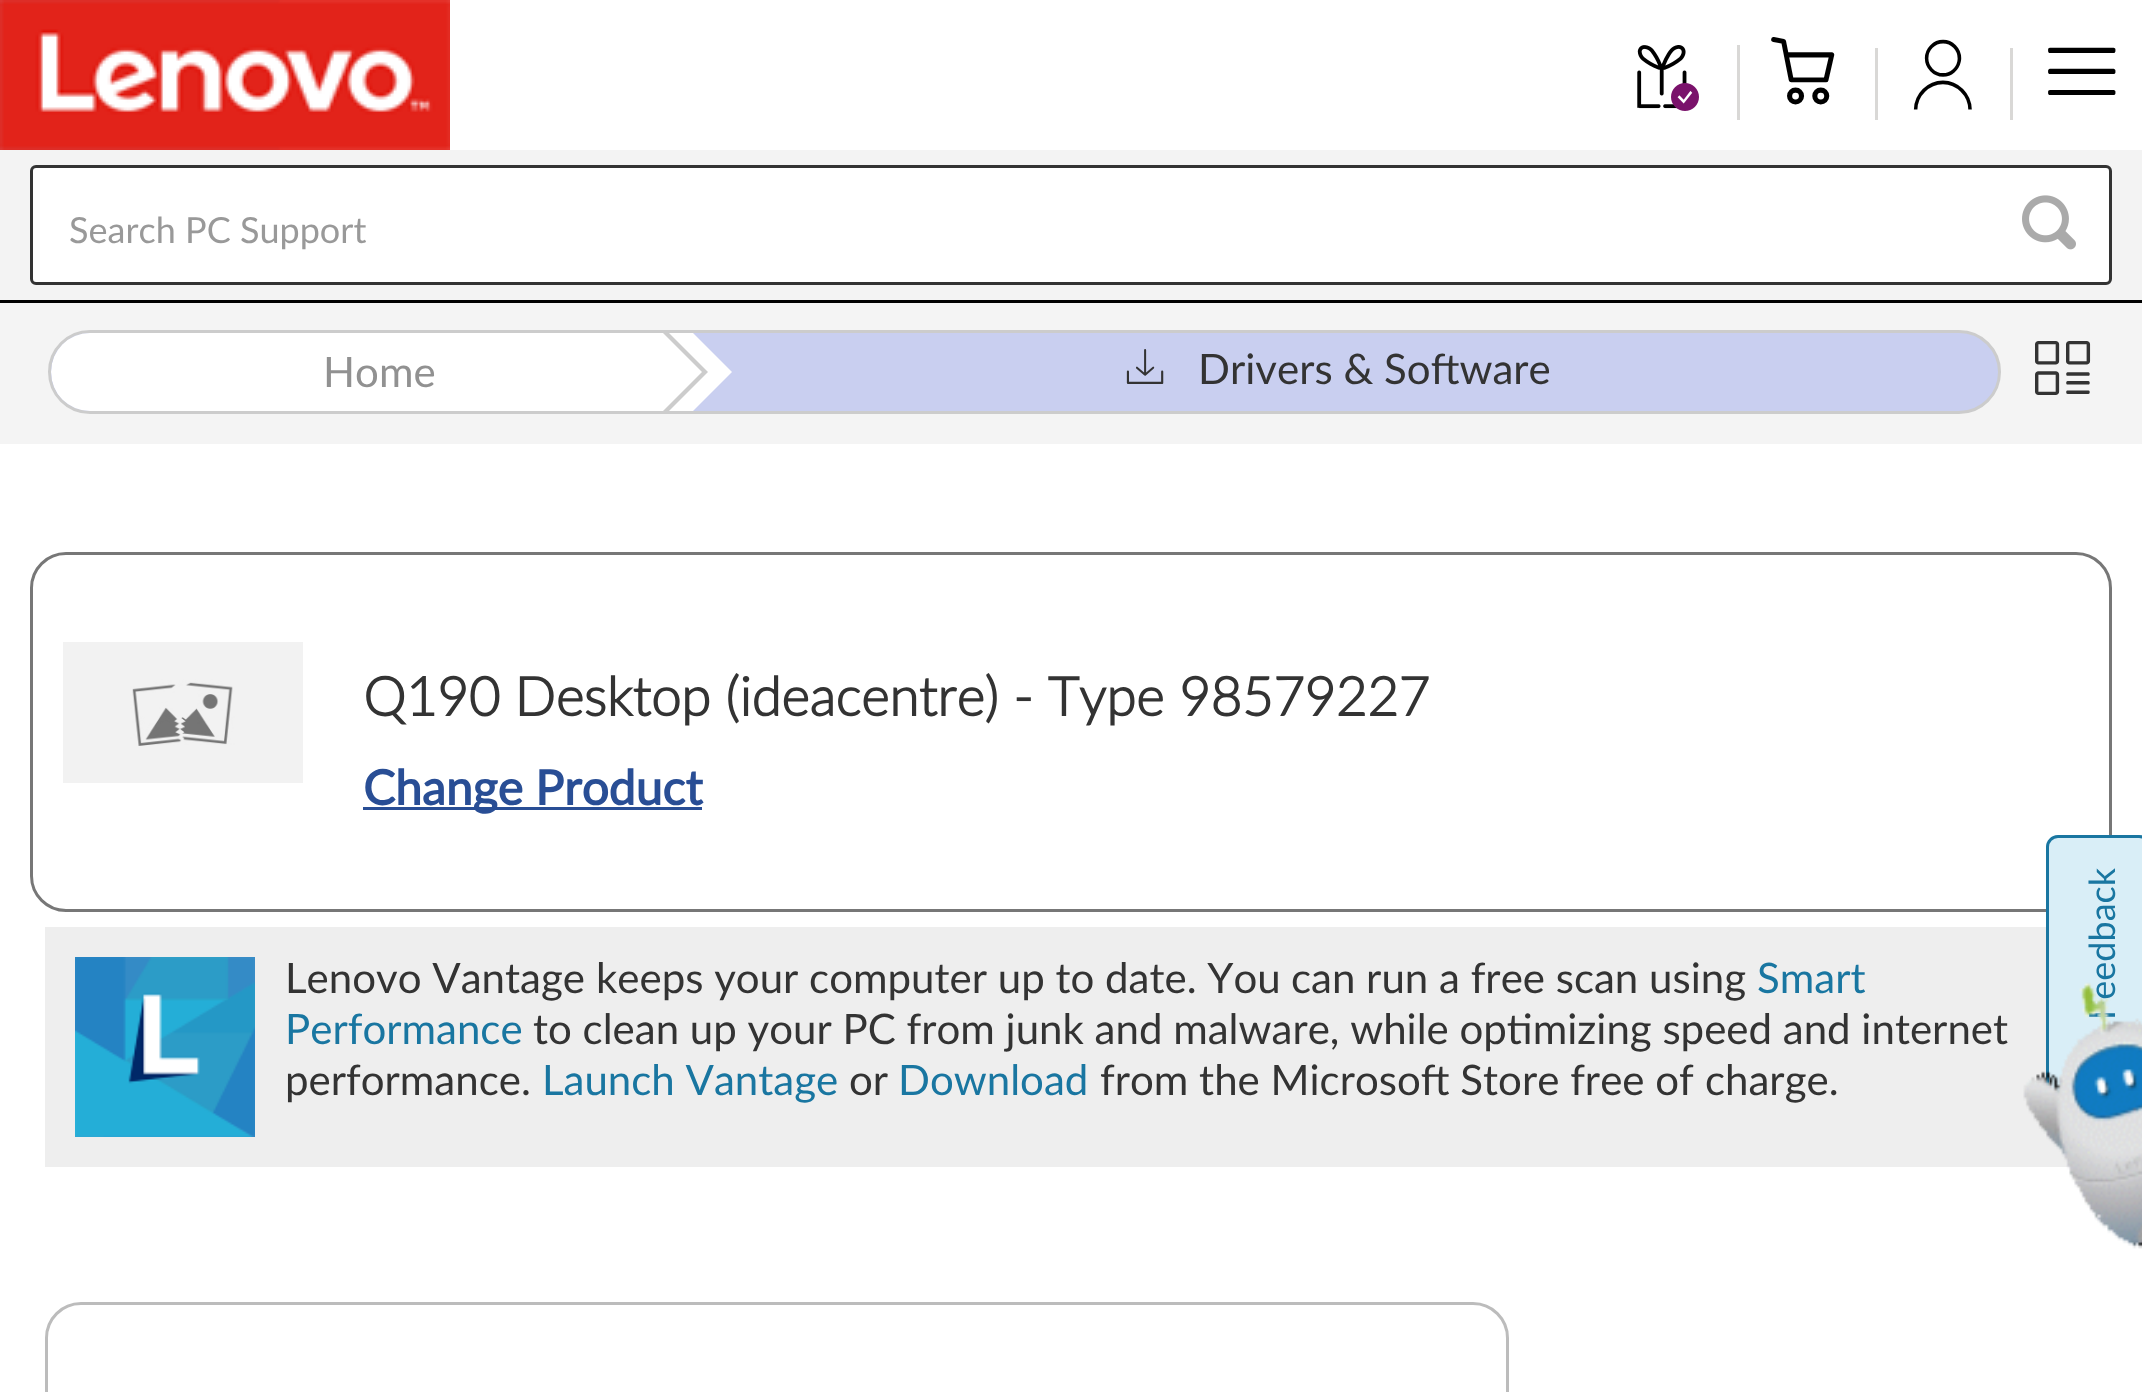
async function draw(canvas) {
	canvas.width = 2142;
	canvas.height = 1392;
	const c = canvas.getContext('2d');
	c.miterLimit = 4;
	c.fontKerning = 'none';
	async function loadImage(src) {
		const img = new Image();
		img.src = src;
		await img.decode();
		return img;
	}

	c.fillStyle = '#fff';
	c.fillRect(0, 0, 2142, 1392);
	c.fillStyle = '#000';
	c.fillRect(0, 300, 2142, 3);
	c.drawImage(await loadImage('img1.png'), 0, 0, 450, 150);
	c.fillStyle = '#d9d8d6';
	c.fillRect(1737, 45, 3, 75);
	c.drawImage(await loadImage('img2.png'), 1637, 45, 62, 66);
	c.font = '72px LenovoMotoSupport';
	c.fillStyle = '#000';
	c.fillText('󡐑', 1769, 105);
	c.fillStyle = '#d9d8d6';
	c.fillRect(1875, 48, 3, 72);
	c.fillStyle = '#000';
	c.fillText('󡑆', 1907, 105);
	c.fillText('󡑇', 2048, 105);
	c.fillStyle = '#d9d8d6';
	c.fillRect(2010, 48, 3, 72);
	c.fillStyle = '#f3f3f3';
	c.fillRect(0, 150, 2142, 150);
	c.fillStyle = '#fff';
	c.beginPath();
	c.roundRect(31.5, 166.5, 2079, 117, 4.5);
	c.fill();
	c.strokeStyle = '#333';
	c.lineWidth = 3;
	c.stroke();
	c.font = '36px Lato';
	c.fillStyle = '#999';
	c.fillText('Search PC Support', 69, 243);
	c.drawImage(await loadImage('img3.png'), 2022, 195, 54, 55);
	c.fillStyle = '#f4f4f4';
	c.fillRect(0, 303, 2142, 141);
	c.fillStyle = '#c9cff0';
	c.beginPath();
	c.roundRect(49.5, 331.5, 1950, 81, 40.5);
	c.fill();
	c.strokeStyle = '#ccc';
	c.stroke();
	c.save();
	c.beginPath();
	c.roundRect(51, 333, 1947, 78, 39);
	c.clip();
	c.fillStyle = '#fff';
	c.beginPath();
	c.roundRect(51, 330, 657, 84, 42);
	c.fill();
	c.restore();
	c.fillStyle = '#ccc';
	c.beginPath();
	c.moveTo(708, 333);
	c.lineTo(708, 372);
	c.lineTo(702, 372);
	c.lineTo(663, 333);
	c.closePath();
	c.fill();
	c.beginPath();
	c.moveTo(708, 411);
	c.lineTo(663, 411);
	c.lineTo(702, 372);
	c.lineTo(708, 372);
	c.closePath();
	c.fill();
	c.fillStyle = '#fff';
	c.beginPath();
	c.moveTo(732, 333);
	c.lineTo(732, 372);
	c.lineTo(708, 372);
	c.lineTo(669, 333);
	c.closePath();
	c.fill();
	c.beginPath();
	c.moveTo(732, 411);
	c.lineTo(669, 411);
	c.lineTo(708, 372);
	c.lineTo(732, 372);
	c.closePath();
	c.fill();
	c.font = '42px Lato';
	c.fillStyle = '#919191';
	c.fillText('Home', 323, 387);
	c.fillStyle = '#c9cff0';
	c.beginPath();
	c.moveTo(738, 333);
	c.lineTo(738, 372);
	c.lineTo(732, 372);
	c.lineTo(693, 333);
	c.closePath();
	c.fill();
	c.beginPath();
	c.moveTo(738, 411);
	c.lineTo(693, 411);
	c.lineTo(732, 372);
	c.lineTo(738, 372);
	c.closePath();
	c.fill();
	c.font = '42px LenovoMotoSupport';
	c.fillStyle = '#333';
	c.fillText('󡊑', 1124, 384);
	c.font = '42px Lato';
	c.fillText('Drivers & Software', 1198, 384);
	c.font = '66px LenovoMotoSupport';
	c.fillText('󡒉', 2031, 395);
	c.beginPath();
	c.roundRect(31.5, 553.5, 2079, 357, 34.5);
	c.strokeStyle = '#777';
	c.stroke();
	c.drawImage(await loadImage('img4.png'), 63, 642, 240, 141);
	c.font = 'bold 54px "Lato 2"';
	c.fillText('Q190 Desktop (ideacentre) - Type', 363, 716);
	c.fillText('98579227', 1179, 716);
	c.fillStyle = '#294e95';
	c.fillRect(363, 807, 339, 3);
	c.font = 'bold 48px Lato';
	c.fillText('Change Product', 363, 805);
	c.fillStyle = '#eee';
	c.fillRect(45, 927, 2028, 240);
	c.drawImage(await loadImage('img5.png'), 75, 957, 180, 180);
	c.font = '42px Lato';
	c.fillStyle = '#333';
	c.fillText('Lenovo Vantage', 285, 993);
	c.fillText('keeps your computer up to date. You', 596, 993);
	c.fillText('can run a free scan using', 1291, 993);
	c.fillStyle = '#1976a1';
	c.fillText('Smart', 1757, 993);
	c.fillText('Performance', 285, 1044);
	c.fillStyle = '#333';
	c.fillText('to clean up your PC from junk and malware, while optimizing speed and internet', 533, 1044);
	c.fillText('performance.', 285, 1095);
	c.fillStyle = '#1976a1';
	c.fillText('Launch Vantage', 542, 1095);
	c.fillStyle = '#333';
	c.fillText('or', 849, 1095);
	c.fillStyle = '#1976a1';
	c.fillText('Download', 898, 1095);
	c.fillStyle = '#333';
	c.fillText('from the Microsoft Store free of', 1100, 1095);
	c.fillText('charge.', 1705, 1095);
	c.beginPath();
	c.roundRect(46.5, 1303.5, 1461, 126, 34.5);
	c.strokeStyle = '#bcbcbc';
	c.stroke();
	c.fillStyle = '#d9eef7';
	c.beginPath();
	c.moveTo(2046, 1116);
	c.lineTo(2046, 847);
	c.bezierCurveTo(2046, 841, 2051, 835, 2058, 835);
	c.lineTo(2139, 835);
	c.bezierCurveTo(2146, 835, 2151, 841, 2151, 847);
	c.lineTo(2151, 1116);
	c.bezierCurveTo(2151, 1123, 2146, 1128, 2139, 1128);
	c.lineTo(2058, 1128);
	c.bezierCurveTo(2051, 1128, 2046, 1123, 2046, 1116);
	c.closePath();
	c.fill();
	c.beginPath();
	c.moveTo(2047.5, 1116);
	c.lineTo(2047.5, 847);
	c.bezierCurveTo(2047.5, 841.5, 2052, 836.5, 2058, 836.5);
	c.lineTo(2139, 836.5);
	c.bezierCurveTo(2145, 836.5, 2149.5, 841.5, 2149.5, 847);
	c.lineTo(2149.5, 1116);
	c.bezierCurveTo(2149.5, 1122, 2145, 1126.5, 2139, 1126.5);
	c.lineTo(2058, 1126.5);
	c.bezierCurveTo(2052, 1126.5, 2047.5, 1122, 2047.5, 1116);
	c.closePath();
	c.strokeStyle = '#1976a1';
	c.stroke();
	c.font = '36px Lato';
	c.fillStyle = '#1976a1';
	c.save();
	c.translate(2115, 1020);
	c.rotate(-90 * Math.PI / 180);
	c.fillText('Feedback', 0, 0);
	c.restore();
	c.drawImage(await loadImage('img6.png'), 2023, 982, 119, 267);
}

draw(document.querySelector('canvas'));
